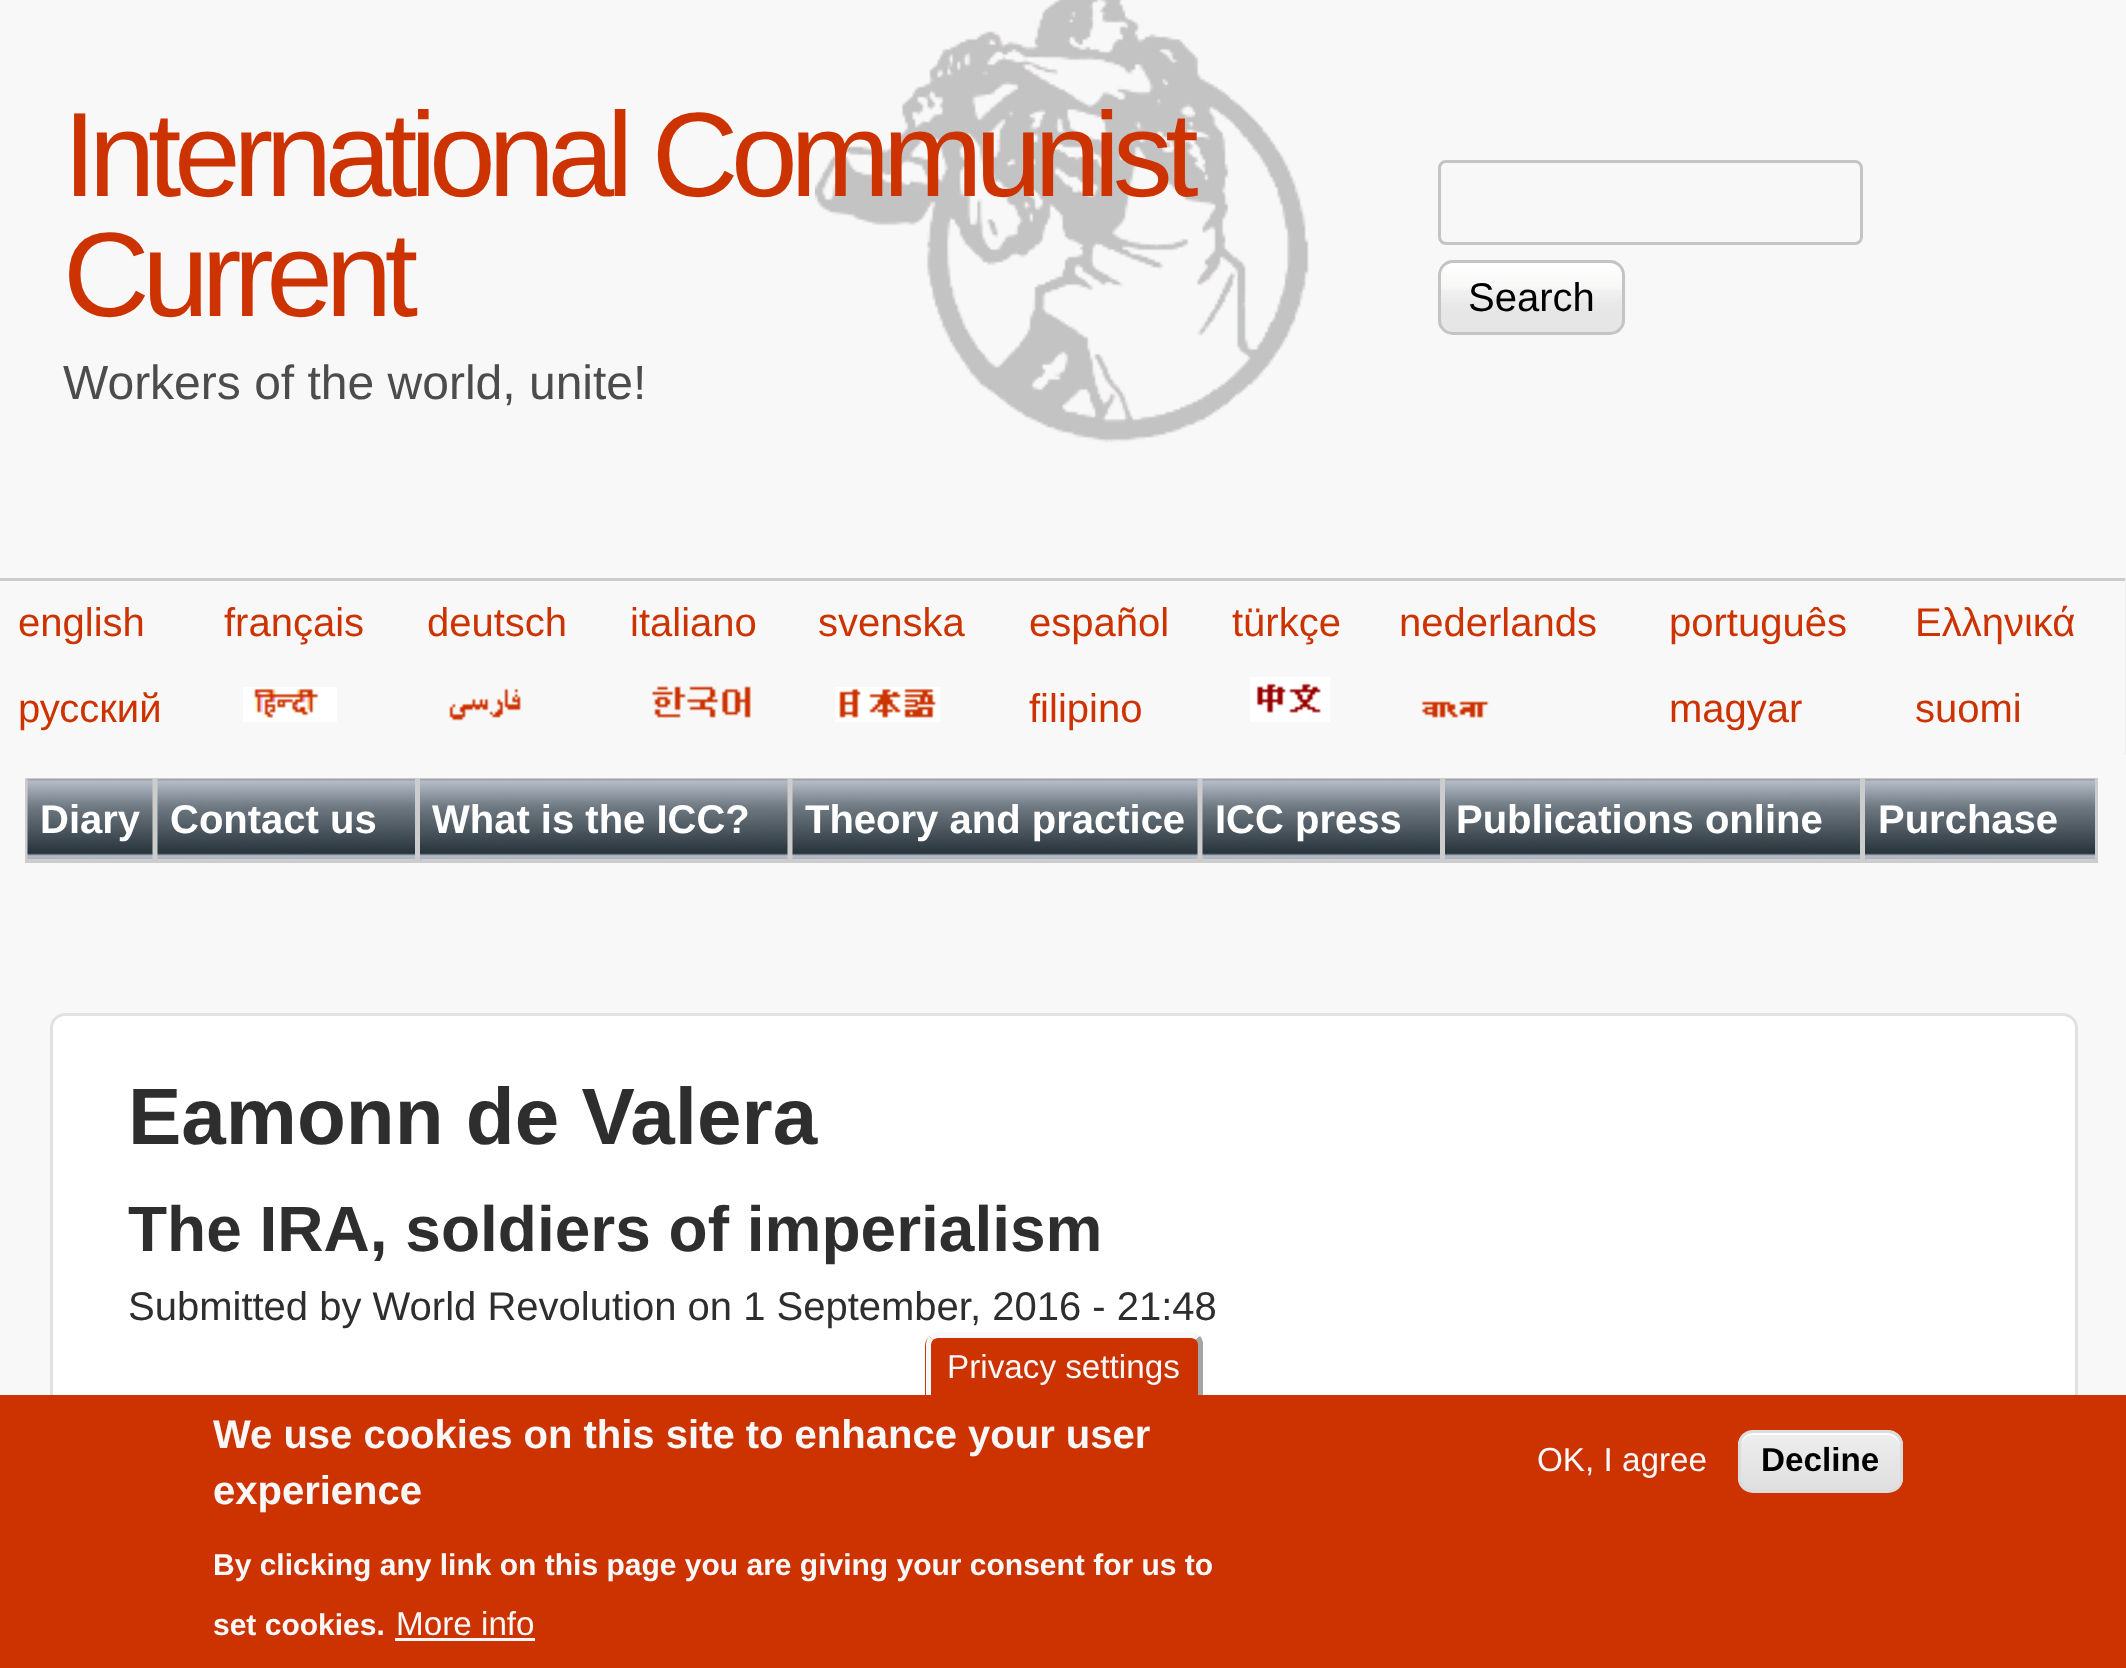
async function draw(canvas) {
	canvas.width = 2126;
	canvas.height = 1668;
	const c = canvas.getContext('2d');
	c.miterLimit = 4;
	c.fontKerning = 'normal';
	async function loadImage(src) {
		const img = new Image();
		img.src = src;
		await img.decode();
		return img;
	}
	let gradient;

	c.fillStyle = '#f8f8f8';
	c.fillRect(0, 0, 2126, 1668);
	c.drawImage(await loadImage('img1.png'), 815, 0, 494, 443);
	c.letterSpacing = '-7.5px';
	c.font = '120px Liberation Sans';
	c.fillStyle = '#c30';
	c.fillText('International Communist', 63, 196);
	c.fillText('Current', 63, 316);
	c.letterSpacing = '0px';
	c.font = '48px Liberation Sans';
	c.fillStyle = '#4c4c4c';
	c.fillText('Workers of the world, unite!', 63, 399);
	c.beginPath();
	c.roundRect(1439.5, 161.5, 422, 82, 6.5);
	c.strokeStyle = '#c4c4c4';
	c.lineWidth = 3;
	c.stroke();
	c.drawImage(await loadImage('img2.png'), 1437, 262, 188, 73);
	c.beginPath();
	c.roundRect(1439.5, 261.5, 184, 72, 13.5);
	c.stroke();
	c.font = '40px Liberation Sans';
	c.fillStyle = '#000';
	c.fillText('Search', 1468, 311);
	c.fillStyle = '#ccc';
	c.fillRect(0, 578, 2126, 3);
	c.fillStyle = '#c30';
	for (const [text, x, y] of [
		['english', 18, 636],
		['français', 224, 636],
		['deutsch', 427, 636],
		['italiano', 630, 636],
		['svenska', 818, 636],
		['español', 1029, 636],
		['türkçe', 1232, 636],
		['nederlands', 1399, 636],
		['português', 1669, 636],
		['Ελληνικά', 1915, 636],
		['русский', 18, 722],
	]) {
		c.fillText(text, x, y);
	}
	c.drawImage(await loadImage('img3.png'), 243, 687, 94, 35);
	c.drawImage(await loadImage('img4.png'), 449, 688, 72, 33);
	c.drawImage(await loadImage('img5.png'), 651, 686, 100, 32);
	c.drawImage(await loadImage('img6.png'), 835, 687, 105, 35);
	c.fillText('filipino', 1029, 722);
	c.drawImage(await loadImage('img7.png'), 1250, 677, 80, 45);
	c.drawImage(await loadImage('img8.png'), 1421, 701, 68, 17);
	c.fillText('magyar', 1669, 722);
	c.fillStyle = '#eee';
	c.fillRect(2125, 578, 1, 177);
	c.fillStyle = '#c30';
	c.fillText('suomi', 1915, 722);
	c.fillStyle = '#eee';
	c.fillRect(28, 859, 124, 1);
	c.strokeStyle = '#ccc';
	c.strokeRect(26.5, 779.5, 127, 82);
	c.drawImage(await loadImage('img9.png'), 27, 779, 126, 81);
	c.font = 'bold 40px Liberation Sans';
	c.fillStyle = '#fff';
	c.fillText('Diary', 40, 833);
	c.fillStyle = '#eee';
	c.fillRect(158, 859, 257, 1);
	c.strokeRect(156.5, 779.5, 260, 82);
	c.drawImage(await loadImage('img10.png'), 157, 779, 258, 81);
	c.fillStyle = '#fff';
	c.fillText('Contact us', 170, 833);
	c.fillStyle = '#eee';
	c.fillRect(421, 859, 366, 1);
	c.strokeRect(419.5, 779.5, 369, 82);
	c.drawImage(await loadImage('img11.png'), 420, 779, 368, 81);
	c.fillStyle = '#fff';
	c.fillText('What is the ICC?', 432, 833);
	c.fillStyle = '#eee';
	c.fillRect(793, 859, 404, 1);
	c.strokeRect(791.5, 779.5, 407, 82);
	c.drawImage(await loadImage('img12.png'), 792, 779, 406, 81);
	c.fillStyle = '#fff';
	c.fillText('Theory and practice', 805, 833);
	c.fillStyle = '#eee';
	c.fillRect(1203, 859, 237, 1);
	c.strokeRect(1201.5, 779.5, 240, 82);
	c.drawImage(await loadImage('img13.png'), 1202, 779, 238, 81);
	c.fillStyle = '#fff';
	c.fillText('ICC press', 1215, 833);
	c.fillStyle = '#eee';
	c.fillRect(1446, 859, 414, 1);
	c.strokeRect(1444.5, 779.5, 417, 82);
	c.drawImage(await loadImage('img14.png'), 1445, 779, 415, 81);
	c.fillStyle = '#fff';
	c.fillText('Publications online', 1456, 833);
	c.fillStyle = '#eee';
	c.fillRect(1866, 859, 229, 1);
	c.strokeRect(1864.5, 779.5, 232, 82);
	c.drawImage(await loadImage('img15.png'), 1865, 779, 230, 81);
	c.fillStyle = '#fff';
	c.fillText('Purchase', 1878, 833);
	c.beginPath();
	c.roundRect(51.5, 1014.5, 2025, 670, 13.5);
	c.fill();
	c.strokeStyle = '#e1e1e1';
	c.stroke();
	c.font = 'bold 80px Liberation Sans';
	c.fillStyle = '#2e2e2e';
	c.fillText('Eamonn de Valera', 128, 1144);
	c.font = 'bold 64px Liberation Sans';
	c.fillText('The IRA, soldiers of imperialism', 128, 1251);
	c.font = '40px Liberation Sans';
	c.fillText('Submitted by World Revolution on 1 September, 2016 - 21:48', 128, 1320);
	c.fillStyle = '#c30';
	c.fillRect(0, 1395, 2126, 273);
	c.beginPath();
	c.roundRect(925, 1333, 278, 62, [13, 13, 0, 0]);
	c.fill();
	c.fillStyle = '#f8f8f8';
	c.beginPath();
	c.moveTo(938, 1338);
	c.bezierCurveTo(936, 1338, 934, 1339, 933, 1340);
	c.lineTo(929, 1336);
	c.bezierCurveTo(931, 1334, 933, 1333, 935, 1332);
	c.lineTo(1194, 1332);
	c.bezierCurveTo(1197, 1333, 1198, 1334, 1200, 1336);
	c.lineTo(1196, 1340);
	c.bezierCurveTo(1195, 1339, 1193, 1338, 1191, 1338);
	c.closePath();
	c.fill();
	c.fillStyle = '#a5a5a5';
	c.beginPath();
	c.moveTo(1198, 1395);
	c.lineTo(1203, 1395);
	c.lineTo(1203, 1345);
	c.bezierCurveTo(1203, 1342, 1202, 1338, 1200, 1336);
	c.lineTo(1196, 1340);
	c.bezierCurveTo(1197, 1341, 1198, 1343, 1198, 1345);
	c.closePath();
	c.fill();
	c.fillStyle = '#f8f8f8';
	c.beginPath();
	c.moveTo(926, 1395);
	c.lineTo(931, 1395);
	c.lineTo(931, 1345);
	c.bezierCurveTo(931, 1343, 932, 1341, 933, 1340);
	c.lineTo(929, 1336);
	c.bezierCurveTo(927, 1338, 926, 1342, 926, 1345);
	c.closePath();
	c.fill();
	c.font = '33.25px Liberation Sans';
	c.fillText('Privacy settings', 947, 1378);
	c.font = 'bold 40px Liberation Sans';
	c.fillText('We use cookies on this site to enhance your user', 213, 1448);
	c.fillText('experience', 213, 1504);
	c.font = 'bold 30px Liberation Sans';
	c.fillText('By clicking any link on this page you are giving your consent for us to', 213, 1575);
	c.fillText('set cookies.', 213, 1635);
	c.font = '33.25px Liberation Sans';
	c.fillText('More info', 396, 1635);
	c.fillRect(395, 1638, 140, 3);
	c.fillText('OK, I agree', 1537, 1471);
	c.save();
	c.beginPath();
	c.roundRect(1738, 1430, 165, 63, 15);
	c.clip();
	gradient = c.createLinearGradient(1820, 1433, 1820, 1490);
	gradient.addColorStop(0.05, '#ededed');
	gradient.addColorStop(1, '#dfdfdf');
	c.fillStyle = gradient;
	c.fillRect(1738, 1433, 165, 57);
	c.restore();
	c.fillStyle = '#fff';
	c.beginPath();
	c.moveTo(1752, 1435);
	c.lineTo(1888, 1435);
	c.bezierCurveTo(1894, 1435, 1900, 1441, 1900, 1448);
	c.bezierCurveTo(1900, 1428, 1879, 1433, 1865, 1433);
	c.lineTo(1775, 1433);
	c.bezierCurveTo(1761, 1433, 1740, 1428, 1740, 1448);
	c.bezierCurveTo(1740, 1441, 1746, 1435, 1752, 1435);
	c.closePath();
	c.fill();
	c.beginPath();
	c.roundRect(1739.5, 1431.5, 162, 60, 13.5);
	c.strokeStyle = '#dcdcdc';
	c.stroke();
	c.font = 'bold 33.25px Liberation Sans';
	c.fillStyle = '#000';
	c.fillText('Decline', 1761, 1471);
}

draw(document.querySelector('canvas'));
